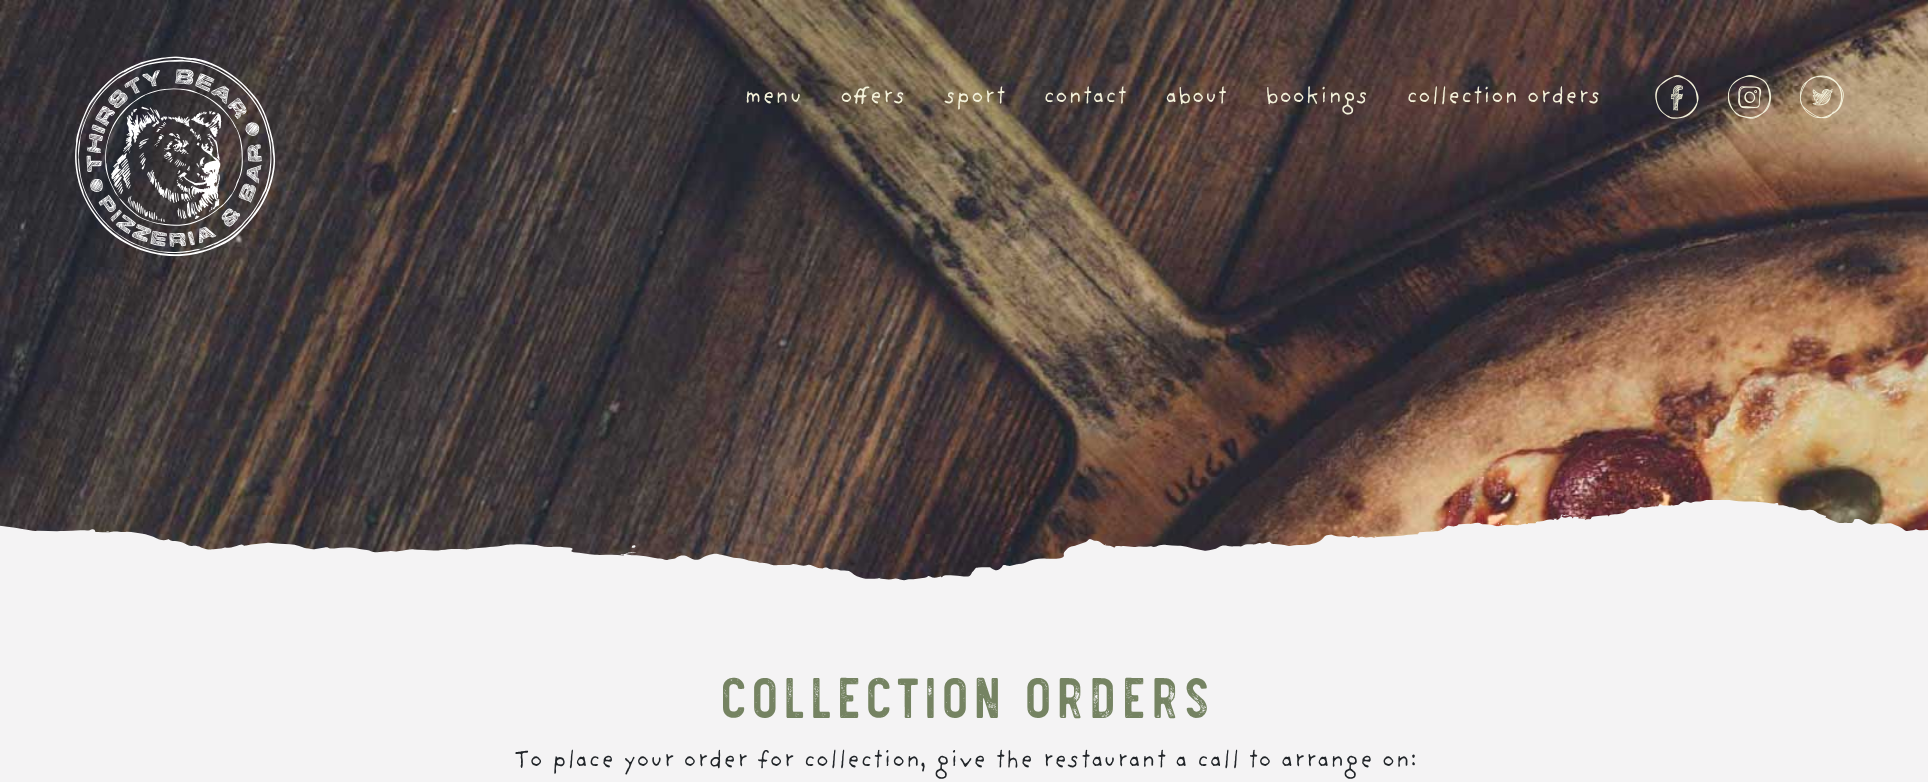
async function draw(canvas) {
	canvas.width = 1928;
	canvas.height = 782;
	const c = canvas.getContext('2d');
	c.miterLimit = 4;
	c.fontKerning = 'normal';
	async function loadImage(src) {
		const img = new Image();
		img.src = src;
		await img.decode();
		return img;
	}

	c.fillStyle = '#fff';
	c.fillRect(0, 0, 1928, 782);
	c.drawImage(await loadImage('img1.png'), 0, 0, 1928, 581);
	c.drawImage(await loadImage('img2.png'), 75, 56, 200, 201);
	c.font = '24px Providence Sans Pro';
	c.fillStyle = '#f4f2db';
	for (const [text, x, y] of [
		['menu', 744, 103],
		['offers', 840, 103],
		['sport', 944, 103],
		['contact', 1043, 103],
		['about', 1165, 103],
		['bookings', 1265, 103],
		['collection orders', 1406, 103],
	]) {
		c.fillText(text, x, y);
	}
	c.drawImage(await loadImage('img3.png'), 1655, 75, 44, 44);
	c.drawImage(await loadImage('img4.png'), 1728, 75, 43, 44);
	c.drawImage(await loadImage('img5.png'), 1800, 75, 44, 44);
	c.fillStyle = '#f4f3f4';
	c.fillRect(0, 625, 1928, 157);
	c.drawImage(await loadImage('img6.png'), 0, 500, 1928, 125);
	c.font = 'bold 60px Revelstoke';
	c.fillStyle = '#758362';
	c.fillText('COLLECTION ORDERS', 717, 718);
	c.font = '25px Providence Sans Pro';
	c.fillStyle = '#212529';
	c.fillText('To place your order for collection, give the restaurant a call to arrange on:', 513, 767);
}

draw(document.querySelector('canvas'));
